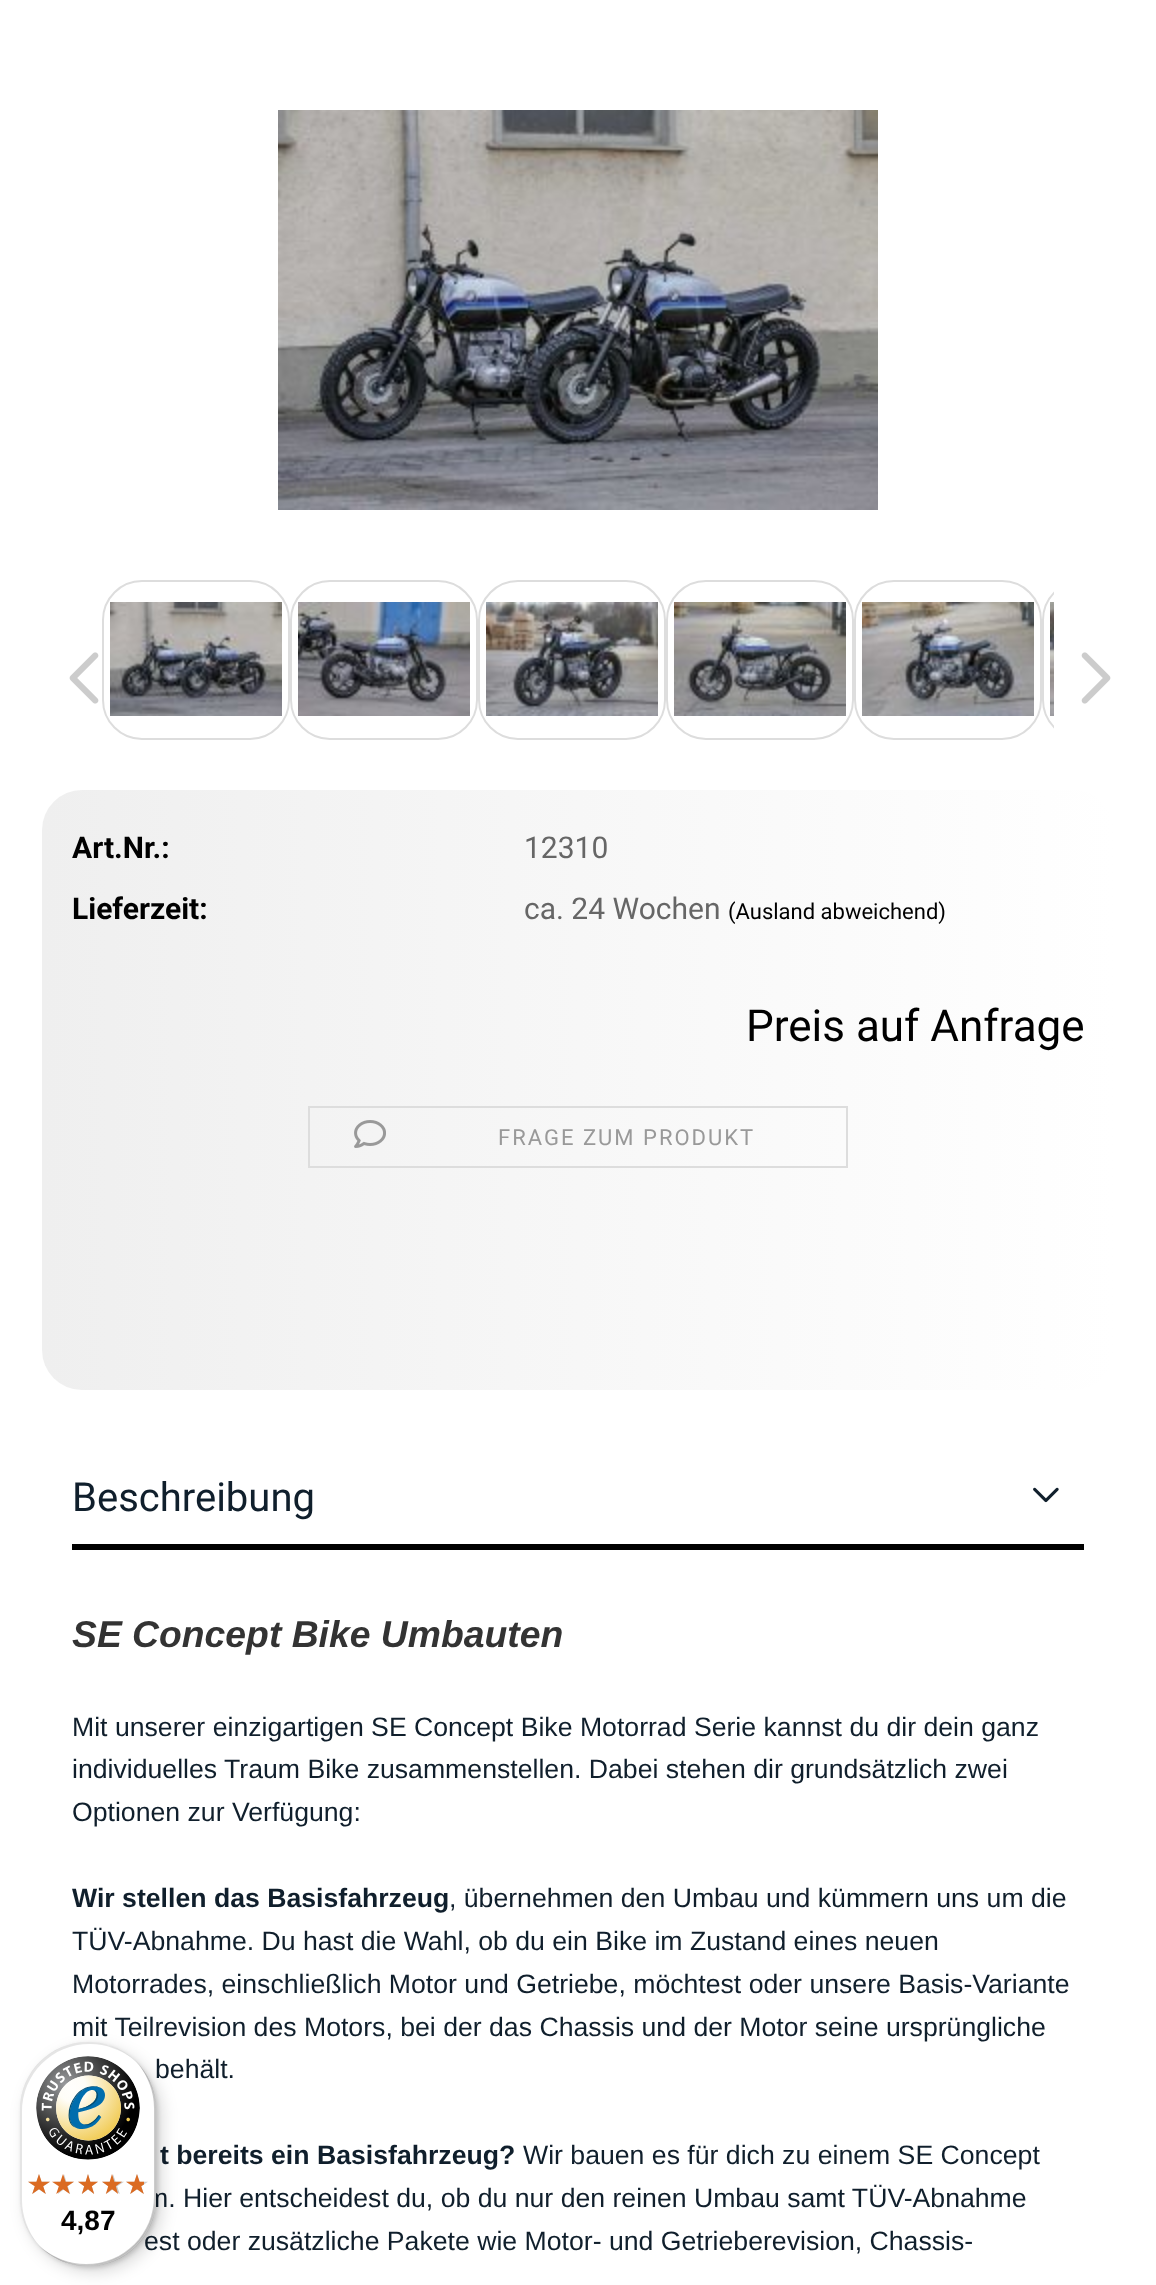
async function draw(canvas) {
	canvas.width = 1156;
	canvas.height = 2285;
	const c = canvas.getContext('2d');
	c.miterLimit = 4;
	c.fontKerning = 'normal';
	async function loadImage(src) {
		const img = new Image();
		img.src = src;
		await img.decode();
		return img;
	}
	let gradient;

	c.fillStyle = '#fff';
	c.fillRect(0, 0, 1156, 2285);
	c.drawImage(await loadImage('img1.png'), 278, 110, 600, 400);
	c.drawImage(await loadImage('img2.png'), 69, 652, 30, 52);
	c.beginPath();
	c.roundRect(103, 581, 186, 158, 39);
	c.strokeStyle = '#ddd';
	c.lineWidth = 2;
	c.stroke();
	c.drawImage(await loadImage('img3.png'), 110, 602, 172, 114);
	c.beginPath();
	c.roundRect(291, 581, 186, 158, 39);
	c.stroke();
	c.drawImage(await loadImage('img4.png'), 298, 602, 172, 114);
	c.beginPath();
	c.roundRect(479, 581, 186, 158, 39);
	c.stroke();
	c.drawImage(await loadImage('img5.png'), 486, 602, 172, 114);
	c.beginPath();
	c.roundRect(667, 581, 186, 158, 39);
	c.stroke();
	c.drawImage(await loadImage('img6.png'), 674, 602, 172, 114);
	c.beginPath();
	c.roundRect(855, 581, 186, 158, 39);
	c.stroke();
	c.drawImage(await loadImage('img7.png'), 862, 602, 172, 114);
	c.save();
	c.beginPath();
	c.rect(102, 580, 952, 160);
	c.clip();
	c.beginPath();
	c.roundRect(1043, 581, 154, 158, 39);
	c.stroke();
	c.restore();
	c.drawImage(await loadImage('img8.png'), 1050, 602, 4, 114);
	c.drawImage(await loadImage('img9.png'), 1081, 652, 30, 52);
	gradient = c.createLinearGradient(42, 1090, 1114, 1090);
	gradient.addColorStop(0, '#efefef');
	gradient.addColorStop(1, '#fff');
	c.fillStyle = gradient;
	c.beginPath();
	c.roundRect(42, 790, 1072, 600, 40);
	c.fill();
	c.font = 'bold 30px Roboto';
	c.fillStyle = '#000';
	c.fillText('Art.Nr.:', 72, 858);
	c.font = '30px Roboto';
	c.fillStyle = '#666';
	c.fillText('12310', 524, 858);
	c.font = 'bold 30px Roboto';
	c.fillStyle = '#000';
	c.fillText('Lieferzeit:', 72, 919);
	c.font = '30px Roboto';
	c.fillStyle = '#666';
	c.fillText('ca. 24 Wochen', 524, 919);
	c.font = '22px Roboto';
	c.fillStyle = '#000';
	c.fillText('(Ausland abweichend)', 728, 919);
	c.font = '44px Roboto';
	c.fillText('Preis auf Anfrage', 746, 1041);
	c.strokeRect(309, 1107, 538, 60);
	c.drawImage(await loadImage('img10.png'), 354, 1120, 32, 28);
	c.letterSpacing = '2px';
	c.font = '22px Roboto';
	c.fillStyle = '#999';
	c.fillText('FRAGE ZUM PRODUKT', 498, 1145);
	c.fillStyle = '#000';
	c.fillRect(72, 1544, 1012, 6);
	c.letterSpacing = '0px';
	c.font = '40px Roboto';
	c.fillStyle = '#101f2c';
	c.fillText('Beschreibung', 72, 1511);
	c.drawImage(await loadImage('img11.png'), 1033, 1487, 26, 16);
	c.font = 'italic bold 37.3px Liberation Sans';
	c.fillStyle = '#333';
	c.fillText('SE Concept Bike Umbauten', 72, 1647);
	c.font = '26.65px Liberation Sans';
	c.fillStyle = '#101f2c';
	for (const [text, x, y] of [
		['Mit unserer einzigartigen SE Concept Bike Motorrad Serie kannst du dir dein ganz', 72, 1736],
		['individuelles Traum Bike zusammenstellen. Dabei stehen dir grundsätzlich zwei', 72, 1778],
		['Optionen zur Verfügung:', 72, 1821],
	]) {
		c.fillText(text, x, y);
	}
	c.font = 'bold 26.65px Liberation Sans';
	c.fillText('Wir stellen das Basisfahrzeug', 72, 1907);
	c.font = '26.65px Liberation Sans';
	for (const [text, x, y] of [
		[', übernehmen den Umbau und kümmern uns um die', 449, 1907],
		['TÜV-Abnahme. Du hast die Wahl, ob du ein Bike im Zustand eines neuen', 72, 1950],
		['Motorrades, einschließlich Motor und Getriebe, möchtest oder unsere Basis-Variante', 72, 1993],
		['mit Teilrevision des Motors, bei der das Chassis und der Motor seine ursprüngliche', 72, 2036],
		['behält.', 155, 2078],
	]) {
		c.fillText(text, x, y);
	}
	c.font = 'bold 26.65px Liberation Sans';
	c.fillText('t bereits ein Basisfahrzeug?', 160, 2164);
	c.font = '26.65px Liberation Sans';
	for (const [text, x, y] of [
		['Wir bauen es für dich zu einem SE Concept', 523, 2164],
		['m. Hier entscheidest du, ob du nur den reinen Umbau samt TÜV-Abnahme', 146, 2207],
		['est oder zusätzliche Pakete wie Motor- und Getrieberevision, Chassis-', 144, 2250],
	]) {
		c.fillText(text, x, y);
	}
	c.fillStyle = '#00000026';
	c.filter = 'blur(8px)';
	c.beginPath();
	c.roundRect(26, 2048, 136, 224, 68);
	c.fill();
	c.filter = 'none';
	c.filter = 'blur(2px)';
	c.beginPath();
	c.roundRect(22, 2044, 136, 224, 68);
	c.fill();
	c.filter = 'none';
	c.fillStyle = '#fff';
	c.beginPath();
	c.roundRect(20, 2042, 136, 224, 68);
	c.fill();
	c.fillStyle = '#0000001a';
	c.beginPath();
	c.moveTo(90, 2044);
	c.bezierCurveTo(106, 2044, 121, 2050, 133, 2059);
	c.bezierCurveTo(121, 2048, 105, 2042, 88, 2042);
	c.bezierCurveTo(50, 2042, 20, 2072, 20, 2110);
	c.lineTo(20, 2198);
	c.bezierCurveTo(20, 2215, 26, 2231, 37, 2243);
	c.bezierCurveTo(28, 2231, 22, 2216, 22, 2200);
	c.lineTo(22, 2112);
	c.bezierCurveTo(22, 2074, 52, 2044, 90, 2044);
	c.closePath();
	c.fill();
	c.fillStyle = '#00000033';
	c.beginPath();
	c.moveTo(43, 2249);
	c.bezierCurveTo(55, 2260, 71, 2266, 88, 2266);
	c.bezierCurveTo(126, 2266, 156, 2236, 156, 2198);
	c.lineTo(156, 2110);
	c.bezierCurveTo(156, 2093, 150, 2077, 139, 2065);
	c.bezierCurveTo(148, 2077, 154, 2092, 154, 2108);
	c.lineTo(154, 2196);
	c.bezierCurveTo(154, 2234, 124, 2264, 86, 2264);
	c.bezierCurveTo(70, 2264, 55, 2258, 43, 2249);
	c.closePath();
	c.fill();
	c.fillStyle = '#32323233';
	c.beginPath();
	c.moveTo(38, 2245);
	c.bezierCurveTo(51, 2258, 68, 2266, 88, 2266);
	c.bezierCurveTo(126, 2266, 156, 2236, 156, 2198);
	c.lineTo(156, 2110);
	c.bezierCurveTo(156, 2090, 148, 2073, 135, 2060);
	c.bezierCurveTo(147, 2073, 155, 2090, 155, 2109);
	c.lineTo(155, 2197);
	c.bezierCurveTo(155, 2234, 124, 2265, 87, 2265);
	c.bezierCurveTo(68, 2265, 51, 2257, 38, 2245);
	c.closePath();
	c.fill();
	c.fillStyle = '#ffffff4d';
	c.beginPath();
	c.moveTo(47, 2252);
	c.bezierCurveTo(59, 2261, 73, 2266, 88, 2266);
	c.bezierCurveTo(126, 2266, 156, 2236, 156, 2198);
	c.lineTo(156, 2110);
	c.bezierCurveTo(156, 2095, 151, 2081, 142, 2069);
	c.bezierCurveTo(150, 2080, 155, 2094, 155, 2109);
	c.lineTo(155, 2197);
	c.bezierCurveTo(155, 2235, 125, 2265, 87, 2265);
	c.bezierCurveTo(72, 2265, 58, 2260, 47, 2252);
	c.closePath();
	c.fill();
	c.drawImage(await loadImage('img12.png'), 36, 2056, 104, 104);
	c.drawImage(await loadImage('img13.png'), 28, 2174, 22, 20);
	c.drawImage(await loadImage('img14.png'), 54, 2174, 20, 20);
	c.drawImage(await loadImage('img15.png'), 78, 2174, 20, 20);
	c.drawImage(await loadImage('img16.png'), 102, 2174, 22, 20);
	c.drawImage(await loadImage('img16.png'), 126, 2174, 22, 20);
	c.drawImage(await loadImage('img17.png'), 28, 2174, 22, 20);
	c.drawImage(await loadImage('img18.png'), 52, 2174, 22, 20);
	c.drawImage(await loadImage('img19.png'), 78, 2174, 20, 20);
	c.drawImage(await loadImage('img20.png'), 102, 2174, 20, 20);
	c.drawImage(await loadImage('img21.png'), 126, 2174, 18, 20);
	c.font = 'bold 28px Liberation Sans';
	c.fillStyle = '#000';
	c.fillText('4,87', 61, 2230);
}

draw(document.querySelector('canvas'));
